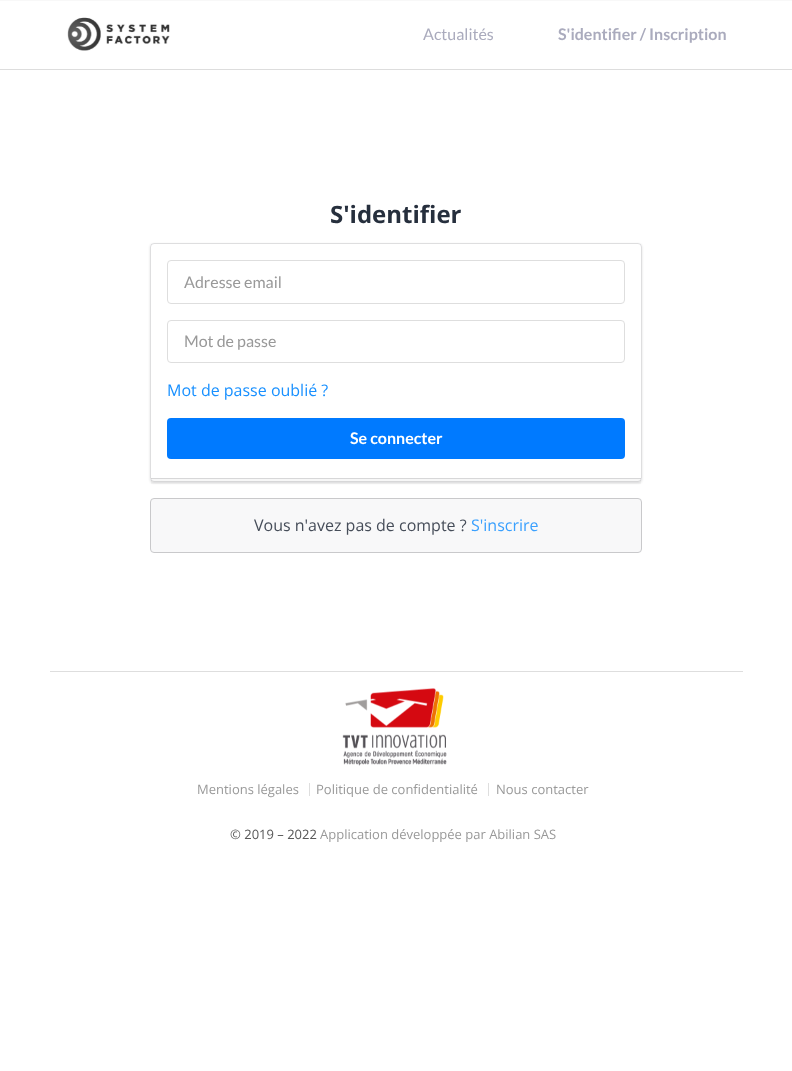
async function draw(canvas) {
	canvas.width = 792;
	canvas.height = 1071;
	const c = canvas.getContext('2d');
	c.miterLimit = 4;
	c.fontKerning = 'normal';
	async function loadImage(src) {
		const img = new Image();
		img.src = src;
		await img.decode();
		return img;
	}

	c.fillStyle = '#fff';
	c.fillRect(0, 0, 792, 1071);
	c.fillStyle = '#f8f8f8';
	c.fillRect(0, 0, 792, 1);
	c.fillStyle = '#ddd';
	c.fillRect(0, 69, 792, 1);
	c.drawImage(await loadImage('img1.png'), 67, 17, 103, 34);
	c.font = '16px Lato';
	c.fillStyle = '#aaabbd';
	c.fillText('Actualités', 423, 40);
	c.font = 'bold 16px Lato';
	c.fillText('S\'identifier / Inscription', 558, 40);
	c.font = 'bold 24px Open Sans';
	c.fillStyle = '#262f3d';
	c.fillText('S\'identifier', 330, 223);
	c.fillStyle = '#22242626';
	c.filter = 'blur(1px)';
	c.beginPath();
	c.roundRect(150, 244, 492, 239, 4);
	c.fill();
	c.filter = 'none';
	c.fillStyle = '#fff';
	c.beginPath();
	c.roundRect(150, 243, 492, 239, 4);
	c.fill();
	c.beginPath();
	c.roundRect(150.5, 243.5, 491, 238, 3.5);
	c.strokeStyle = '#22242626';
	c.stroke();
	c.beginPath();
	c.roundRect(167.5, 260.5, 457, 43, 3.5);
	c.strokeStyle = '#dedede';
	c.stroke();
	c.font = '16px Lato';
	c.fillStyle = '#999';
	c.fillText('Adresse email', 184, 288);
	c.beginPath();
	c.roundRect(167.5, 320.5, 457, 42, 3.5);
	c.stroke();
	c.fillText('Mot de passe', 184, 347);
	c.font = '16px Open Sans';
	c.fillStyle = '#1890ff';
	c.fillText('Mot de passe oublié ?', 167, 396);
	c.fillStyle = '#007aff';
	c.beginPath();
	c.roundRect(167, 418, 458, 41, 4);
	c.fill();
	c.font = 'bold 16px Lato';
	c.fillStyle = '#fff';
	c.fillText('Se connecter', 350, 444);
	c.fillStyle = '#00000008';
	c.fillRect(151, 478, 490, 6);
	c.fillStyle = '#22242626';
	c.fillRect(151, 478, 490, 1);
	c.fillStyle = '#f8f8f9';
	c.beginPath();
	c.roundRect(150.5, 498.5, 491, 54, 3.5);
	c.fill();
	c.strokeStyle = '#c9c9cb';
	c.stroke();
	c.font = '16px Open Sans';
	c.fillStyle = '#464d59';
	c.fillText('Vous n\'avez pas de compte ?', 254, 531);
	c.fillStyle = '#3aa0fe';
	c.fillText('S\'inscrire', 471, 531);
	c.fillStyle = '#dedede';
	c.fillRect(50, 671, 693, 1);
	c.drawImage(await loadImage('img2.png'), 342, 688, 105, 78);
	c.font = '13px Open Sans';
	c.fillStyle = '#999';
	c.fillText('Mentions légales', 197, 794);
	c.fillStyle = '#dedede';
	c.fillRect(309, 783, 1, 13);
	c.fillStyle = '#999';
	c.fillText('Politique de confidentialité', 316, 794);
	c.fillStyle = '#dedede';
	c.fillRect(488, 783, 1, 13);
	c.fillStyle = '#999';
	c.fillText('Nous contacter', 496, 794);
	c.fillStyle = '#595959';
	c.fillText('© 2019 – 2022', 230, 839);
	c.fillStyle = '#999';
	c.fillText('Application développée par Abilian SAS', 320, 839);
}

draw(document.querySelector('canvas'));
